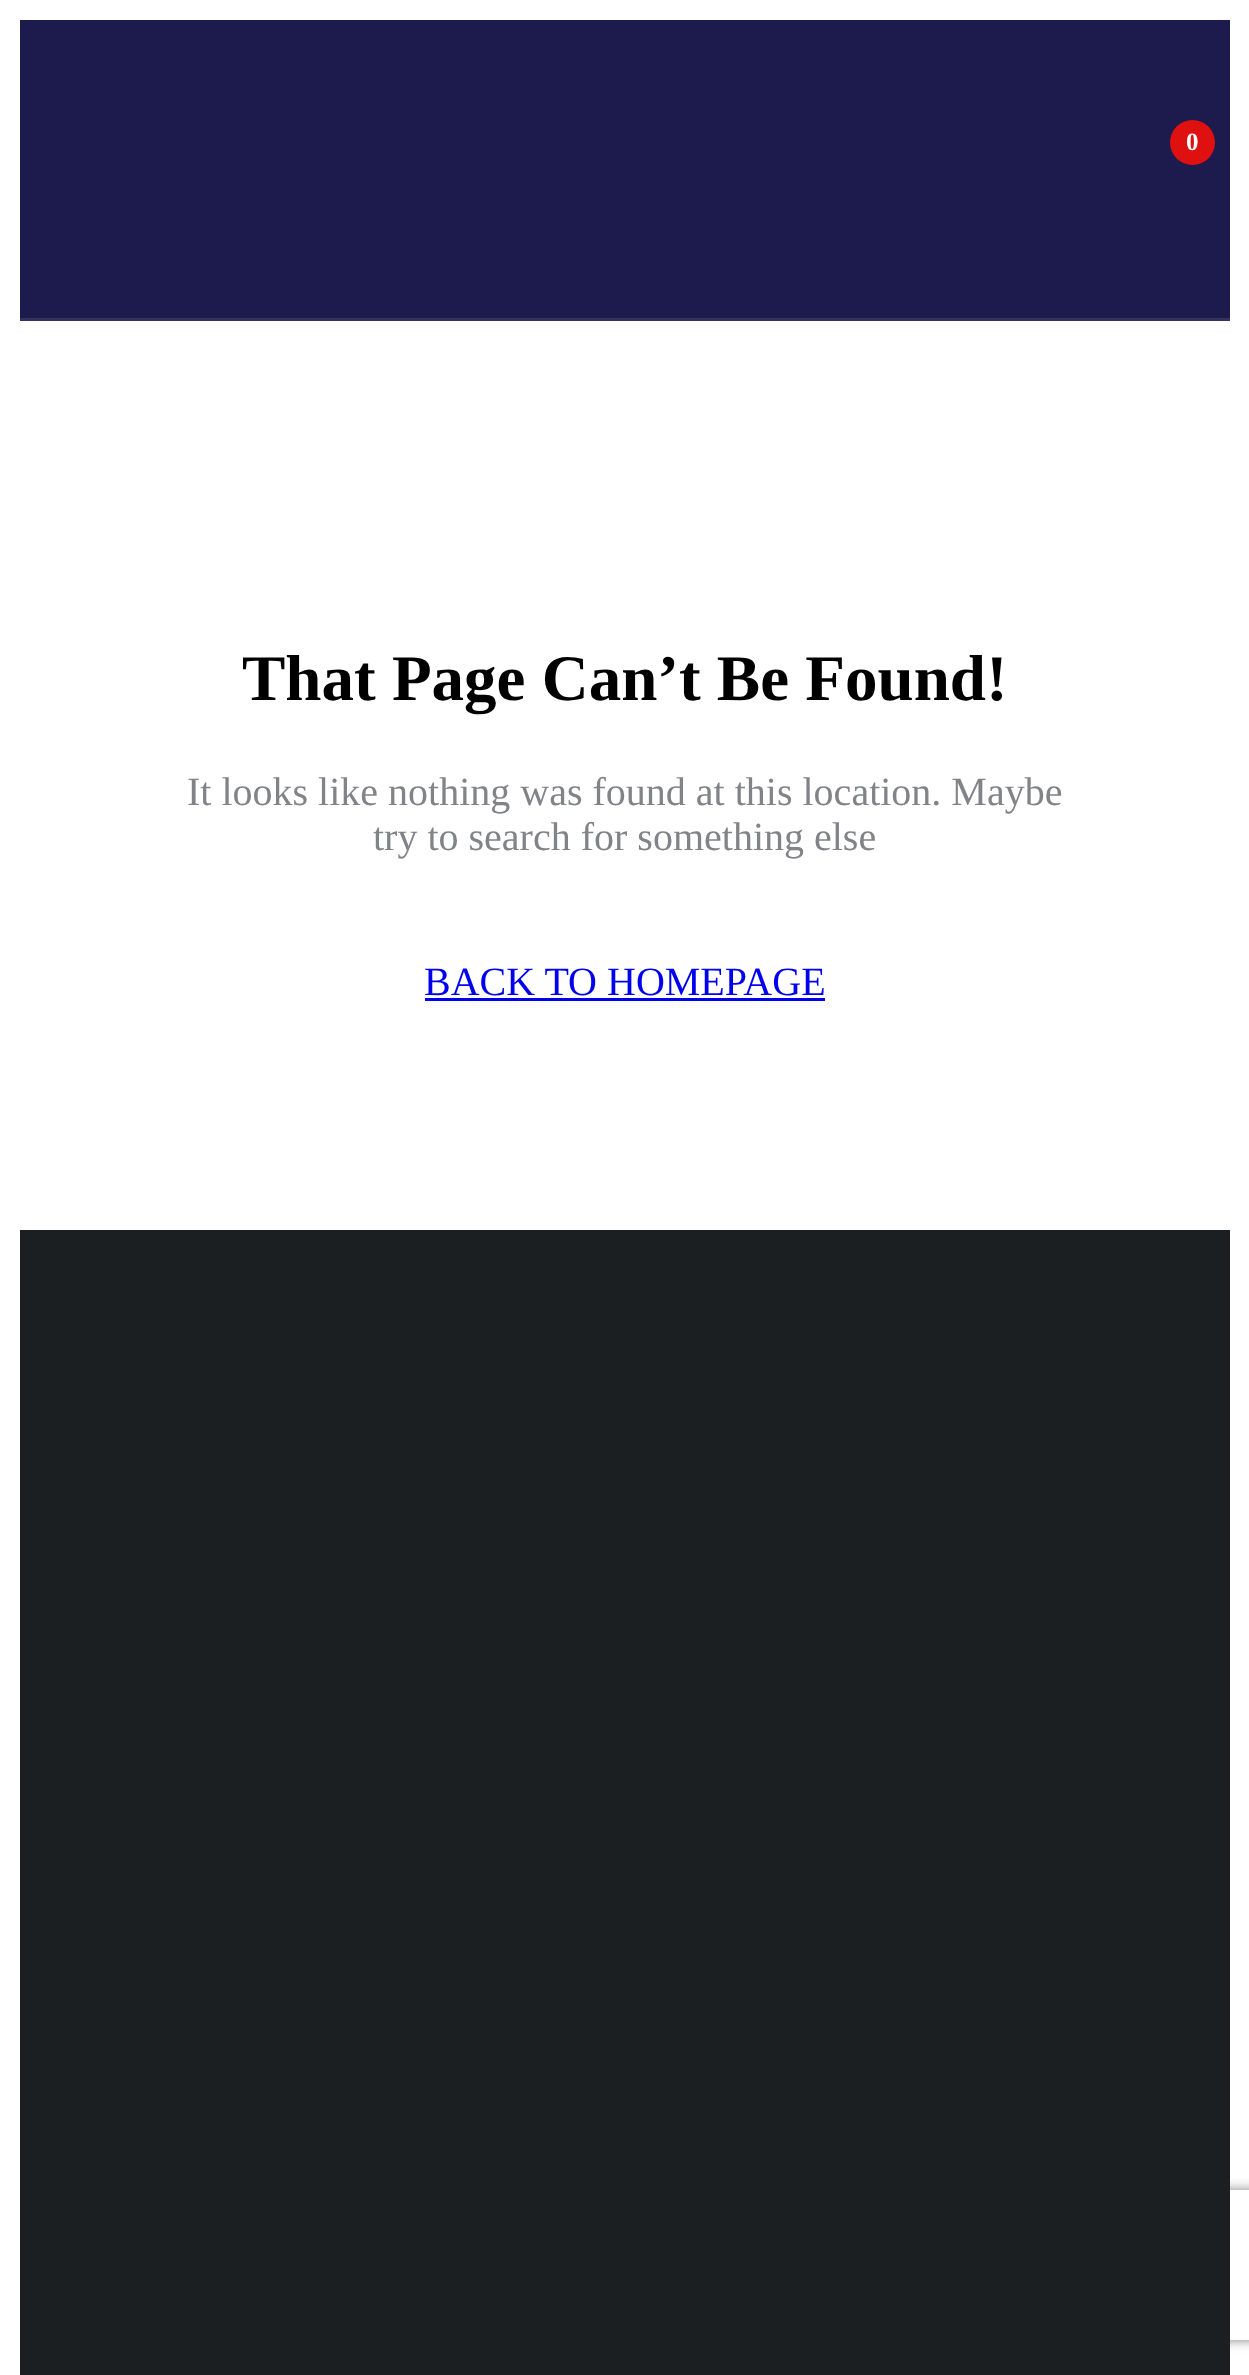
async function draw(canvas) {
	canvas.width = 1249;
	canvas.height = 2375;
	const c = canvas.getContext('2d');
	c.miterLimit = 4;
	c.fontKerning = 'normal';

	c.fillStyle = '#fff';
	c.fillRect(0, 0, 1249, 2375);
	c.fillStyle = '#1d1b4d';
	c.fillRect(20, 20, 1210, 298);
	c.fillStyle = '#34325f';
	c.fillRect(20, 318, 1210, 3);
	c.fillStyle = '#de1010';
	c.beginPath();
	c.arc(1192.5, 142.5, 22.5, 0, 2 * Math.PI);
	c.fill();
	c.font = 'bold 25px Liberation Serif';
	c.fillStyle = '#fff';
	c.fillText('0', 1186, 150);
	c.font = 'bold 65px Liberation Serif';
	c.fillStyle = '#000';
	c.fillText('That Page Can’t Be Found!', 242, 700);
	c.font = '40px Liberation Serif';
	c.fillStyle = '#818388';
	c.fillText('It looks like nothing was found at this location. Maybe', 187, 805);
	c.fillText('try to search for something else', 373, 850);
	c.fillStyle = '#00e';
	c.fillText('BACK TO HOMEPAGE', 424, 995);
	c.fillRect(425, 998, 400, 3);
	c.save();
	c.beginPath();
	c.moveTo(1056, 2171);
	c.lineTo(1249, 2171);
	c.lineTo(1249, 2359);
	c.lineTo(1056, 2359);
	c.closePath();
	c.moveTo(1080, 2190);
	c.lineTo(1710, 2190);
	c.bezierCurveTo(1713, 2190, 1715, 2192, 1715, 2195);
	c.lineTo(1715, 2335);
	c.bezierCurveTo(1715, 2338, 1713, 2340, 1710, 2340);
	c.lineTo(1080, 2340);
	c.bezierCurveTo(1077, 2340, 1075, 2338, 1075, 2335);
	c.lineTo(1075, 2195);
	c.bezierCurveTo(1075, 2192, 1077, 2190, 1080, 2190);
	c.closePath();
	c.clip('evenodd');
	c.fillStyle = '#808080';
	c.filter = 'blur(6px)';
	c.beginPath();
	c.roundRect(1075, 2190, 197, 150, 5);
	c.fill();
	c.filter = 'none';
	c.restore();
	c.fillStyle = '#1b1f22';
	c.fillRect(20, 1230, 1210, 1145);
}

draw(document.querySelector('canvas'));
